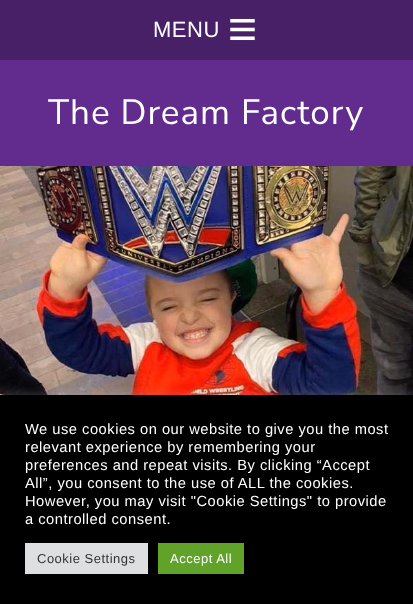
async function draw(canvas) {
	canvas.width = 413;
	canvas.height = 604;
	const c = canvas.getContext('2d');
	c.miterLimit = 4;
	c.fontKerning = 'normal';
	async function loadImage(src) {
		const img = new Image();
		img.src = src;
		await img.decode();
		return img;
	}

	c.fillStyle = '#472068';
	c.fillRect(0, 0, 413, 604);
	c.letterSpacing = '0.5px';
	c.font = '22px Liberation Sans';
	c.fillStyle = '#fff';
	c.fillText('MENU', 153, 37);
	c.drawImage(await loadImage('img1.png'), 230, 18, 25, 23);
	c.fillStyle = '#622c8e';
	c.fillRect(0, 60, 413, 106);
	c.letterSpacing = '1px';
	c.font = '35px Nunito Sans';
	c.fillStyle = '#fff';
	c.fillText('The Dream Factory', 48, 124);
	c.drawImage(await loadImage('img2.png'), 0, 166, 413, 229);
	c.fillStyle = '#acabab4d';
	c.filter = 'blur(5px)';
	c.beginPath();
	c.rect(0, 394, 413, 209);
	c.fill();
	c.filter = 'none';
	c.fillStyle = '#000';
	c.fillRect(0, 395, 413, 209);
	c.letterSpacing = '0.5px';
	c.font = '14.7px Liberation Sans';
	c.fillStyle = '#fff';
	for (const [text, x, y] of [
		['We use cookies on our website to give you the most', 25, 434],
		['relevant experience by remembering your', 25, 452],
		['preferences and repeat visits. By clicking “Accept', 25, 470],
		['All”, you consent to the use of ALL the cookies.', 25, 488],
		['However, you may visit "Cookie Settings" to provide', 25, 506],
		['a controlled consent.', 25, 524],
	]) {
		c.fillText(text, x, y);
	}
	c.fillStyle = '#dedfe0';
	c.fillRect(25, 543, 123, 31);
	c.font = '13px Liberation Sans';
	c.fillStyle = '#333';
	c.fillText('Cookie Settings', 37, 563);
	c.fillStyle = '#61a229';
	c.fillRect(158, 543, 86, 31);
	c.fillStyle = '#fff';
	c.fillText('Accept All', 170, 563);
}

draw(document.querySelector('canvas'));
